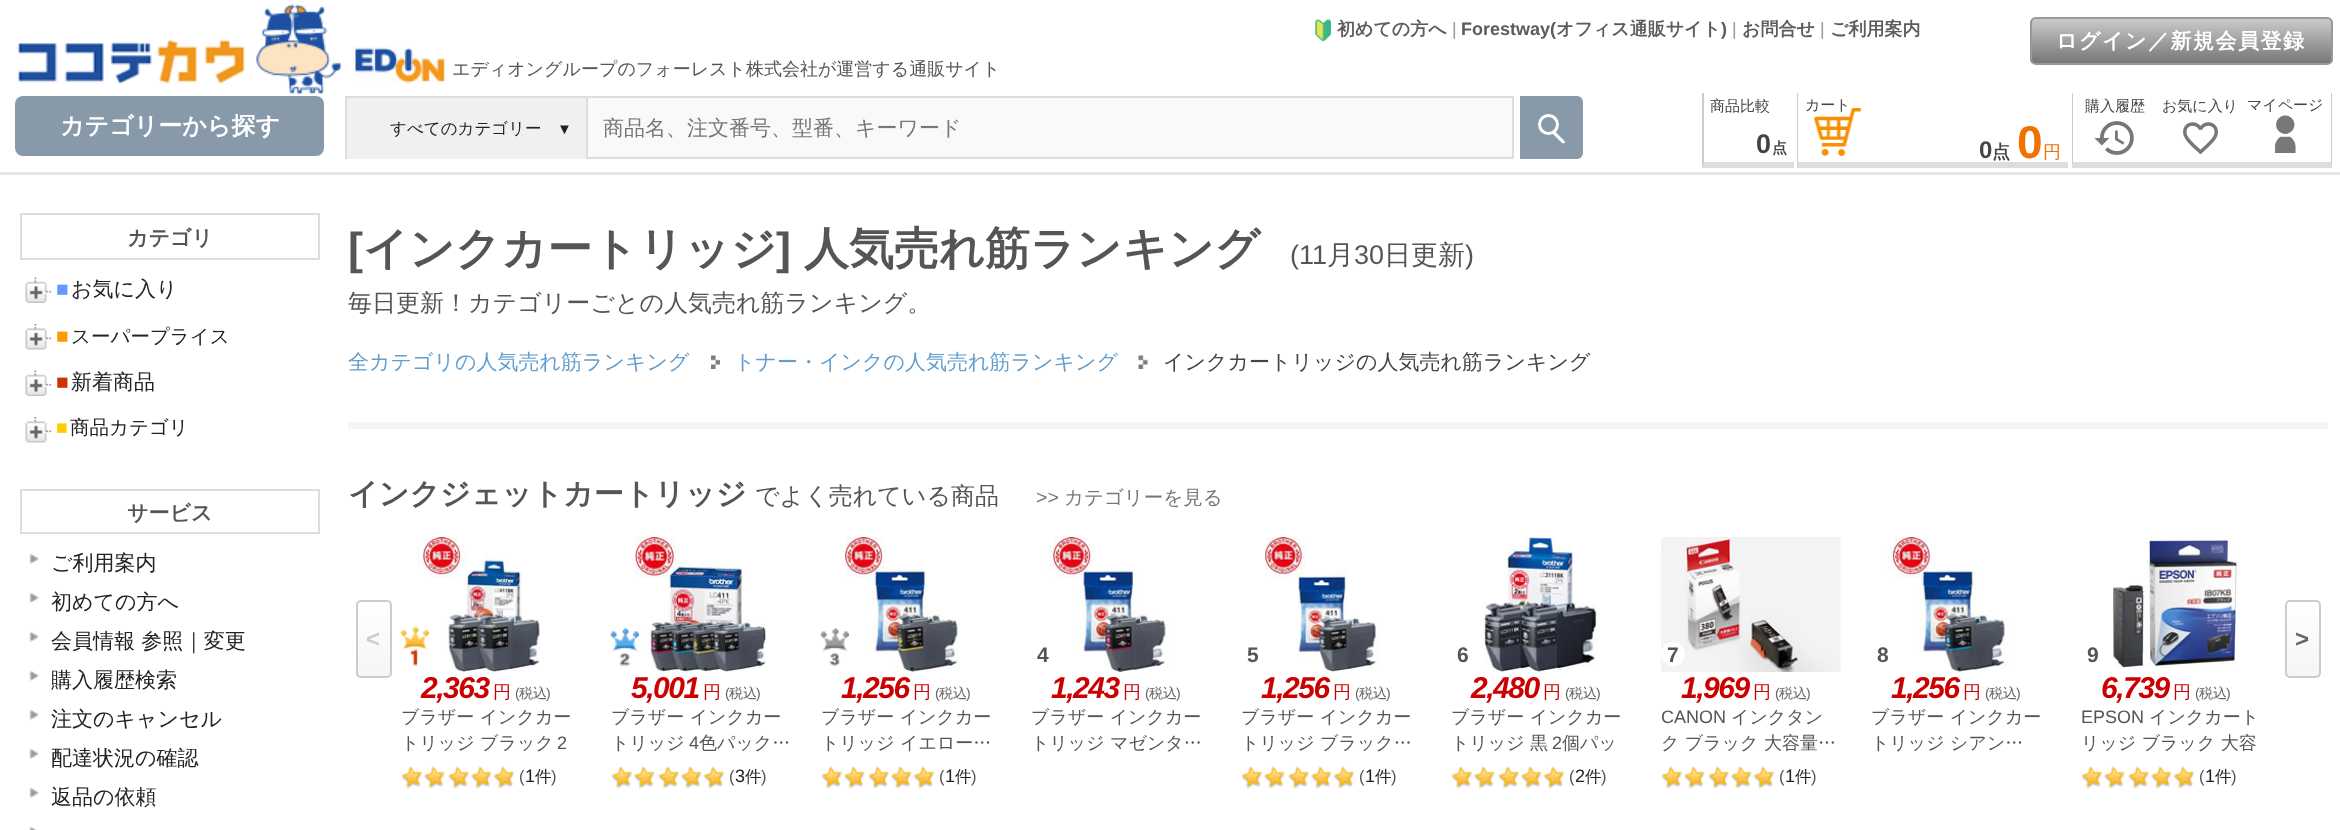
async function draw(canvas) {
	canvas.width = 2340;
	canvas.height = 830;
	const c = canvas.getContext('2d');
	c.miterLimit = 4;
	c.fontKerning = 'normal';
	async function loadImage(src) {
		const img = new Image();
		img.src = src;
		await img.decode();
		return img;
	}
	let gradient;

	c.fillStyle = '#fff';
	c.fillRect(0, 0, 2340, 830);
	c.fillStyle = '#e5e5e5';
	c.fillRect(0, 172, 2340, 3);
	c.drawImage(await loadImage('img1.png'), 17, 40, 228, 44);
	c.drawImage(await loadImage('img2.png'), 256, 4, 85, 91);
	c.drawImage(await loadImage('img3.png'), 352, 46, 94, 37);
	c.font = '500 18px WenQuanYi Zen Hei';
	c.fillStyle = '#555';
	c.fillText('エディオングループのフォーレスト株式会社が運営する通販サイト', 452, 75);
	c.drawImage(await loadImage('img4.png'), 1315, 19, 16, 23);
	c.font = 'bold 18px WenQuanYi Zen Hei';
	c.fillStyle = '#5c5c5c';
	c.fillText('初めての方へ', 1337, 35);
	c.font = '18px Liberation Sans';
	c.fillStyle = '#999';
	c.fillText('|', 1452, 35);
	c.font = 'bold 18px Liberation Sans';
	c.fillStyle = '#5c5c5c';
	c.fillText('Forestway(', 1461, 35);
	c.font = 'bold 18px WenQuanYi Zen Hei';
	c.fillText('オフィス通販サイト', 1556, 35);
	c.font = 'bold 18px Liberation Sans';
	c.fillText(')', 1721, 35);
	c.font = '18px Liberation Sans';
	c.fillStyle = '#999';
	c.fillText('|', 1732, 35);
	c.font = 'bold 18px WenQuanYi Zen Hei';
	c.fillStyle = '#5c5c5c';
	c.fillText('お問合せ', 1742, 35);
	c.font = '18px Liberation Sans';
	c.fillStyle = '#999';
	c.fillText('|', 1820, 35);
	c.font = 'bold 18px WenQuanYi Zen Hei';
	c.fillStyle = '#5c5c5c';
	c.fillText('ご利用案内', 1830, 35);
	c.save();
	c.beginPath();
	c.roundRect(2030, 17, 303, 48, 6);
	c.clip();
	gradient = c.createLinearGradient(2181, 18, 2181, 63);
	gradient.addColorStop(0, '#ccc');
	gradient.addColorStop(1, '#777');
	c.fillStyle = gradient;
	c.fillRect(2030, 18, 303, 45);
	c.restore();
	c.beginPath();
	c.roundRect(2031, 18, 301, 46, 5);
	c.strokeStyle = '#999';
	c.lineWidth = 2;
	c.stroke();
	c.letterSpacing = '1.5px';
	c.font = 'bold 21px WenQuanYi Zen Hei';
	c.fillStyle = '#fff';
	c.fillText('ログイン／新規会員登録', 2056, 48);
	c.fillStyle = '#89a';
	c.beginPath();
	c.roundRect(15, 96, 309, 60, 8);
	c.fill();
	c.letterSpacing = '0px';
	c.font = 'bold 24px WenQuanYi Zen Hei';
	c.fillStyle = '#fff';
	c.fillText('カテゴリーから探す', 60, 134);
	c.fillStyle = '#f9f9f9';
	c.fillRect(588, 98, 924, 59);
	c.strokeStyle = '#ddd';
	c.strokeRect(586, 97, 927, 61);
	c.fillStyle = '#f0f0f0';
	c.fillRect(347, 98, 239, 61);
	c.save();
	c.beginPath();
	c.rect(345, 96, 1238, 63);
	c.clip();
	c.strokeRect(346, 97, 241, 63);
	c.restore();
	c.font = '500 16.5px WenQuanYi Zen Hei';
	c.fillStyle = '#222';
	c.fillText('すべてのカテゴリー', 390, 134);
	c.font = '15px Liberation Sans';
	c.fillText('▼', 557, 134);
	c.font = '500 21px WenQuanYi Zen Hei';
	c.fillStyle = '#777';
	c.fillText('商品名、注文番号、型番、キーワード', 603, 135);
	c.fillStyle = '#89a';
	c.beginPath();
	c.roundRect(1520, 96, 63, 63, [0, 6, 6, 0]);
	c.fill();
	c.beginPath();
	c.arc(1548.5, 124.5, 9, 0, 2 * Math.PI);
	c.strokeStyle = '#fff';
	c.lineWidth = 3;
	c.stroke();
	c.fillStyle = '#fff';
	c.beginPath();
	c.moveTo(1552.5, 131.5);
	c.bezierCurveTo(1553.5, 131, 1554, 131, 1555, 131.5);
	c.lineTo(1564.5, 141);
	c.bezierCurveTo(1565, 141.5, 1565, 142.5, 1564.5, 143);
	c.bezierCurveTo(1563.5, 143.5, 1563, 143.5, 1562, 143);
	c.lineTo(1552.5, 133.5);
	c.bezierCurveTo(1552, 133, 1552, 132, 1552.5, 131.5);
	c.closePath();
	c.fill();
	c.save();
	c.beginPath();
	c.rect(0, 93, 2340, 75);
	c.clip();
	c.fillStyle = '#ddd';
	c.beginPath();
	c.moveTo(1794, 174);
	c.lineTo(1702, 174);
	c.lineTo(1704, 162);
	c.lineTo(1794, 162);
	c.closePath();
	c.fill();
	c.fillStyle = '#ccc';
	c.beginPath();
	c.moveTo(1702, 174);
	c.lineTo(1702, 93);
	c.lineTo(1704, 93);
	c.lineTo(1704, 162);
	c.closePath();
	c.fill();
	c.restore();
	c.font = '500 15px WenQuanYi Zen Hei';
	c.fillStyle = '#444';
	c.fillText('商品比較', 1710, 111);
	c.font = 'bold 27px Liberation Sans';
	c.fillText('0', 1756, 153);
	c.font = 'bold 15px WenQuanYi Zen Hei';
	c.fillText('点', 1772, 153);
	c.save();
	c.beginPath();
	c.rect(0, 93, 2340, 75);
	c.clip();
	c.fillStyle = '#ddd';
	c.beginPath();
	c.moveTo(2068, 174);
	c.lineTo(1797, 174);
	c.lineTo(1798, 162);
	c.lineTo(2068, 162);
	c.closePath();
	c.fill();
	c.fillStyle = '#ccc';
	c.beginPath();
	c.moveTo(1797, 174);
	c.lineTo(1797, 93);
	c.lineTo(1798, 93);
	c.lineTo(1798, 162);
	c.closePath();
	c.fill();
	c.restore();
	c.font = '500 15px WenQuanYi Zen Hei';
	c.fillText('カート', 1805, 110);
	c.drawImage(await loadImage('img5.png'), 1813, 108, 49, 48);
	c.font = 'bold 24px Liberation Sans';
	c.fillText('0', 1979, 158);
	c.font = 'bold 18px WenQuanYi Zen Hei';
	c.fillText('点', 1992, 158);
	c.font = 'bold 46px Liberation Sans';
	c.fillStyle = '#f07100';
	c.fillText('0', 2017, 158);
	c.font = '500 18px WenQuanYi Zen Hei';
	c.fillText('円', 2043, 158);
	c.save();
	c.beginPath();
	c.rect(0, 93, 2340, 75);
	c.clip();
	c.fillStyle = '#ddd';
	c.beginPath();
	c.moveTo(2156, 174);
	c.lineTo(2072, 174);
	c.lineTo(2073, 162);
	c.lineTo(2156, 162);
	c.closePath();
	c.fill();
	c.fillStyle = '#ccc';
	c.beginPath();
	c.moveTo(2072, 174);
	c.lineTo(2072, 93);
	c.lineTo(2073, 93);
	c.lineTo(2073, 162);
	c.closePath();
	c.fill();
	c.restore();
	c.font = '500 15px WenQuanYi Zen Hei';
	c.fillStyle = '#444';
	c.fillText('購入履歴', 2085, 111);
	c.drawImage(await loadImage('img6.png'), 2094, 121, 40, 34);
	c.fillStyle = '#ddd';
	c.fillRect(2156, 162, 85, 6);
	c.fillStyle = '#444';
	c.fillText('お気に入り', 2162, 111);
	c.drawImage(await loadImage('img7.png'), 2183, 122, 35, 33);
	c.save();
	c.beginPath();
	c.rect(0, 93, 2340, 75);
	c.clip();
	c.fillStyle = '#ccc';
	c.beginPath();
	c.moveTo(2332, 93);
	c.lineTo(2332, 174);
	c.lineTo(2331, 162);
	c.lineTo(2331, 93);
	c.closePath();
	c.fill();
	c.fillStyle = '#ddd';
	c.beginPath();
	c.moveTo(2332, 174);
	c.lineTo(2241, 174);
	c.lineTo(2241, 162);
	c.lineTo(2331, 162);
	c.closePath();
	c.fill();
	c.restore();
	c.fillText('マイページ', 2247, 110);
	c.drawImage(await loadImage('img8.png'), 2274, 115, 22, 38);
	c.strokeStyle = '#ddd';
	c.lineWidth = 2;
	c.strokeRect(21, 214, 298, 45);
	c.font = 'bold 21px WenQuanYi Zen Hei';
	c.fillStyle = '#555';
	c.fillText('カテゴリ', 127, 245);
	c.drawImage(await loadImage('img9.png'), 25, 277, 26, 26);
	c.font = '21px Liberation Sans';
	c.fillStyle = '#69f';
	c.fillText('■', 56, 296);
	c.font = '500 21px WenQuanYi Zen Hei';
	c.fillStyle = '#222';
	c.fillText('お気に入り', 71, 296);
	c.drawImage(await loadImage('img10.png'), 25, 324, 26, 26);
	c.font = '21px Liberation Sans';
	c.fillStyle = '#f90';
	c.fillText('■', 56, 343);
	c.font = '500 19.5px WenQuanYi Zen Hei';
	c.fillStyle = '#222';
	c.fillText('スーパープライス', 71, 343);
	c.drawImage(await loadImage('img9.png'), 25, 370, 26, 26);
	c.font = '21px Liberation Sans';
	c.fillStyle = '#c30';
	c.fillText('■', 56, 389);
	c.font = '500 21px WenQuanYi Zen Hei';
	c.fillStyle = '#222';
	c.fillText('新着商品', 71, 389);
	c.drawImage(await loadImage('img10.png'), 25, 417, 26, 26);
	c.font = '19.5px Liberation Sans';
	c.fillStyle = '#fc0';
	c.fillText('■', 56, 434);
	c.font = '500 19.5px WenQuanYi Zen Hei';
	c.fillStyle = '#222';
	c.fillText('商品カテゴリ', 70, 434);
	c.strokeRect(21, 490, 298, 43);
	c.font = 'bold 21px WenQuanYi Zen Hei';
	c.fillStyle = '#555';
	c.fillText('サービス', 127, 520);
	c.drawImage(await loadImage('img11.png'), 29, 553, 11, 12);
	c.font = '500 21px WenQuanYi Zen Hei';
	c.fillStyle = '#222';
	c.fillText('ご利用案内', 51, 570);
	c.drawImage(await loadImage('img11.png'), 29, 592, 11, 12);
	c.fillText('初めての方へ', 51, 609);
	c.drawImage(await loadImage('img11.png'), 29, 631, 11, 12);
	c.fillText('会員情報 参照｜変更', 51, 648);
	c.drawImage(await loadImage('img11.png'), 29, 670, 11, 12);
	c.fillText('購入履歴検索', 51, 687);
	c.drawImage(await loadImage('img11.png'), 29, 709, 11, 12);
	c.fillText('注文のキャンセル', 51, 726);
	c.drawImage(await loadImage('img11.png'), 29, 748, 11, 12);
	c.fillText('配達状況の確認', 51, 765);
	c.drawImage(await loadImage('img11.png'), 29, 787, 11, 12);
	c.fillText('返品の依頼', 51, 804);
	c.drawImage(await loadImage('img12.png'), 29, 826, 9, 4);
	c.font = 'bold 45px Liberation Sans';
	c.fillStyle = '#555';
	c.fillText('[', 348, 264);
	c.font = 'bold 45px WenQuanYi Zen Hei';
	c.fillText('インクカートリッジ', 363, 264);
	c.font = 'bold 45px Liberation Sans';
	c.fillText(']', 776, 264);
	c.font = 'bold 45px WenQuanYi Zen Hei';
	c.fillText('人気売れ筋ランキング', 804, 264);
	c.font = '27px Liberation Sans';
	c.fillText('(11', 1290, 264);
	c.font = '500 27px WenQuanYi Zen Hei';
	c.fillText('月', 1327, 264);
	c.font = '27px Liberation Sans';
	c.fillText('30', 1354, 264);
	c.font = '500 27px WenQuanYi Zen Hei';
	c.fillText('日更新', 1384, 264);
	c.font = '27px Liberation Sans';
	c.fillText(')', 1465, 264);
	c.font = '500 24px WenQuanYi Zen Hei';
	c.fillText('毎日更新！カテゴリーごとの人気売れ筋ランキング。', 348, 311);
	c.font = '500 21px WenQuanYi Zen Hei';
	c.fillStyle = '#639ece';
	c.fillText('全カテゴリの人気売れ筋ランキング', 348, 369);
	c.drawImage(await loadImage('img13.png'), 711, 355, 9, 14);
	c.fillText('トナー・インクの人気売れ筋ランキング', 734, 369);
	c.drawImage(await loadImage('img14.png'), 1138, 355, 10, 14);
	c.fillStyle = '#444';
	c.fillText('インクカートリッジの人気売れ筋ランキング', 1163, 369);
	c.fillStyle = '#f5f5f5';
	c.fillRect(348, 422, 1980, 7);
	c.font = 'bold 30px WenQuanYi Zen Hei';
	c.fillStyle = '#555';
	c.fillText('インクジェットカートリッジ', 348, 504);
	c.font = '500 24px WenQuanYi Zen Hei';
	c.fillText('でよく売れている商品', 755, 504);
	c.font = '19.5px Liberation Sans';
	c.fillStyle = '#777';
	c.fillText('>>', 1036, 504);
	c.font = '500 19.5px WenQuanYi Zen Hei';
	c.fillText('カテゴリーを見る', 1064, 504);
	c.save();
	c.beginPath();
	c.roundRect(356, 600, 36, 78, 5);
	c.clip();
	gradient = c.createLinearGradient(374, 602, 374, 677);
	gradient.addColorStop(0, '#fff');
	gradient.addColorStop(1, '#f5f5f5');
	c.fillStyle = gradient;
	c.fillRect(356, 602, 36, 75);
	c.restore();
	c.beginPath();
	c.roundRect(357, 601, 34, 76, 4);
	c.strokeStyle = '#ccc';
	c.stroke();
	c.letterSpacing = '1.5px';
	c.font = 'bold 24px Liberation Sans';
	c.fillStyle = '#ccc';
	c.fillText('<', 366, 647);
	c.save();
	c.beginPath();
	c.roundRect(2285, 600, 36, 78, 5);
	c.clip();
	gradient = c.createLinearGradient(2303, 602, 2303, 677);
	gradient.addColorStop(0, '#fff');
	gradient.addColorStop(1, '#f5f5f5');
	c.fillStyle = gradient;
	c.fillRect(2285, 602, 36, 75);
	c.restore();
	c.beginPath();
	c.roundRect(2286, 601, 34, 76, 4);
	c.stroke();
	c.fillStyle = '#666';
	c.fillText('>', 2295, 647);
	c.drawImage(await loadImage('img16.png'), 417, 537, 123, 135);
	c.drawImage(await loadImage('img15.png'), 400, 626, 29, 41);
	c.letterSpacing = '-1.5px';
	c.font = 'italic bold 30px Liberation Sans';
	c.fillStyle = '#c00';
	c.fillText('2,363', 421, 698);
	c.letterSpacing = '0px';
	c.font = '500 18px WenQuanYi Zen Hei';
	c.fillText('円', 493, 698);
	c.font = '14px Liberation Sans';
	c.fillStyle = '#666';
	c.fillText('(', 515, 698);
	c.font = '500 14px WenQuanYi Zen Hei';
	c.fillText('税込', 519, 698);
	c.font = '14px Liberation Sans';
	c.fillText(')', 546, 698);
	c.font = '500 18px WenQuanYi Zen Hei';
	c.fillStyle = '#555';
	c.fillText('ブラザー インクカー', 401, 723);
	c.fillText('トリッジ ブラック', 401, 749);
	c.font = '18px Liberation Sans';
	c.fillText('2', 557, 749);
	c.drawImage(await loadImage('img17.png'), 401, 766, 114, 23);
	c.font = '16.5px Liberation Sans';
	c.fillText('(', 519, 782);
	c.font = '18px Liberation Sans';
	c.fillStyle = '#222';
	c.fillText('1', 525, 782);
	c.font = '500 16.5px WenQuanYi Zen Hei';
	c.fillText('件', 535, 782);
	c.font = '16.5px Liberation Sans';
	c.fillStyle = '#555';
	c.fillText(')', 551, 782);
	c.drawImage(await loadImage('img19.png'), 635, 537, 131, 135);
	c.drawImage(await loadImage('img18.png'), 610, 628, 29, 39);
	c.letterSpacing = '-1.5px';
	c.font = 'italic bold 30px Liberation Sans';
	c.fillStyle = '#c00';
	c.fillText('5,001', 631, 698);
	c.letterSpacing = '0px';
	c.font = '500 18px WenQuanYi Zen Hei';
	c.fillText('円', 703, 698);
	c.font = '14px Liberation Sans';
	c.fillStyle = '#666';
	c.fillText('(', 725, 698);
	c.font = '500 14px WenQuanYi Zen Hei';
	c.fillText('税込', 729, 698);
	c.font = '14px Liberation Sans';
	c.fillText(')', 756, 698);
	c.font = '500 18px WenQuanYi Zen Hei';
	c.fillStyle = '#555';
	c.fillText('ブラザー インクカー', 611, 723);
	c.fillText('トリッジ', 611, 749);
	c.font = '18px Liberation Sans';
	c.fillText('4', 689, 749);
	c.font = '500 18px WenQuanYi Zen Hei';
	c.fillText('色パック…', 699, 749);
	c.drawImage(await loadImage('img17.png'), 611, 766, 114, 23);
	c.font = '16.5px Liberation Sans';
	c.fillText('(', 729, 782);
	c.font = '18px Liberation Sans';
	c.fillStyle = '#222';
	c.fillText('3', 735, 782);
	c.font = '500 16.5px WenQuanYi Zen Hei';
	c.fillText('件', 745, 782);
	c.font = '16.5px Liberation Sans';
	c.fillStyle = '#555';
	c.fillText(')', 761, 782);
	c.drawImage(await loadImage('img21.png'), 845, 537, 115, 135);
	c.drawImage(await loadImage('img20.png'), 820, 628, 29, 39);
	c.letterSpacing = '-1.5px';
	c.font = 'italic bold 30px Liberation Sans';
	c.fillStyle = '#c00';
	c.fillText('1,256', 841, 698);
	c.letterSpacing = '0px';
	c.font = '500 18px WenQuanYi Zen Hei';
	c.fillText('円', 913, 698);
	c.font = '14px Liberation Sans';
	c.fillStyle = '#666';
	c.fillText('(', 935, 698);
	c.font = '500 14px WenQuanYi Zen Hei';
	c.fillText('税込', 939, 698);
	c.font = '14px Liberation Sans';
	c.fillText(')', 966, 698);
	c.font = '500 18px WenQuanYi Zen Hei';
	c.fillStyle = '#555';
	c.fillText('ブラザー インクカー', 821, 723);
	c.fillText('トリッジ イエロー…', 821, 749);
	c.drawImage(await loadImage('img17.png'), 821, 766, 114, 23);
	c.font = '16.5px Liberation Sans';
	c.fillText('(', 939, 782);
	c.font = '18px Liberation Sans';
	c.fillStyle = '#222';
	c.fillText('1', 945, 782);
	c.font = '500 16.5px WenQuanYi Zen Hei';
	c.fillText('件', 955, 782);
	c.font = '16.5px Liberation Sans';
	c.fillStyle = '#555';
	c.fillText(')', 971, 782);
	c.drawImage(await loadImage('img22.png'), 1047, 537, 123, 135);
	c.font = 'bold 21px Liberation Sans';
	c.fillText('4', 1037, 662);
	c.letterSpacing = '-1.5px';
	c.font = 'italic bold 30px Liberation Sans';
	c.fillStyle = '#c00';
	c.fillText('1,243', 1051, 698);
	c.letterSpacing = '0px';
	c.font = '500 18px WenQuanYi Zen Hei';
	c.fillText('円', 1123, 698);
	c.font = '14px Liberation Sans';
	c.fillStyle = '#666';
	c.fillText('(', 1145, 698);
	c.font = '500 14px WenQuanYi Zen Hei';
	c.fillText('税込', 1149, 698);
	c.font = '14px Liberation Sans';
	c.fillText(')', 1176, 698);
	c.font = '500 18px WenQuanYi Zen Hei';
	c.fillStyle = '#555';
	c.fillText('ブラザー インクカー', 1031, 723);
	c.fillText('トリッジ マゼンタ…', 1031, 749);
	c.font = 'bold 21px Liberation Sans';
	c.fillText('5', 1247, 662);
	c.drawImage(await loadImage('img23.png'), 1265, 537, 115, 135);
	c.letterSpacing = '-1.5px';
	c.font = 'italic bold 30px Liberation Sans';
	c.fillStyle = '#c00';
	c.fillText('1,256', 1261, 698);
	c.letterSpacing = '0px';
	c.font = '500 18px WenQuanYi Zen Hei';
	c.fillText('円', 1333, 698);
	c.font = '14px Liberation Sans';
	c.fillStyle = '#666';
	c.fillText('(', 1355, 698);
	c.font = '500 14px WenQuanYi Zen Hei';
	c.fillText('税込', 1359, 698);
	c.font = '14px Liberation Sans';
	c.fillText(')', 1386, 698);
	c.font = '500 18px WenQuanYi Zen Hei';
	c.fillStyle = '#555';
	c.fillText('ブラザー インクカー', 1241, 723);
	c.fillText('トリッジ ブラック…', 1241, 749);
	c.drawImage(await loadImage('img17.png'), 1241, 766, 114, 23);
	c.font = '16.5px Liberation Sans';
	c.fillText('(', 1359, 782);
	c.font = '18px Liberation Sans';
	c.fillStyle = '#222';
	c.fillText('1', 1365, 782);
	c.font = '500 16.5px WenQuanYi Zen Hei';
	c.fillText('件', 1375, 782);
	c.font = '16.5px Liberation Sans';
	c.fillStyle = '#555';
	c.fillText(')', 1391, 782);
	c.font = 'bold 21px Liberation Sans';
	c.fillText('6', 1457, 662);
	c.drawImage(await loadImage('img24.png'), 1483, 537, 115, 135);
	c.letterSpacing = '-1.5px';
	c.font = 'italic bold 30px Liberation Sans';
	c.fillStyle = '#c00';
	c.fillText('2,480', 1471, 698);
	c.letterSpacing = '0px';
	c.font = '500 18px WenQuanYi Zen Hei';
	c.fillText('円', 1543, 698);
	c.font = '14px Liberation Sans';
	c.fillStyle = '#666';
	c.fillText('(', 1565, 698);
	c.font = '500 14px WenQuanYi Zen Hei';
	c.fillText('税込', 1569, 698);
	c.font = '14px Liberation Sans';
	c.fillText(')', 1596, 698);
	c.font = '500 18px WenQuanYi Zen Hei';
	c.fillStyle = '#555';
	c.fillText('ブラザー インクカー', 1451, 723);
	c.fillText('トリッジ 黒', 1451, 749);
	c.font = '18px Liberation Sans';
	c.fillText('2', 1552, 749);
	c.font = '500 18px WenQuanYi Zen Hei';
	c.fillText('個パッ', 1562, 749);
	c.drawImage(await loadImage('img17.png'), 1451, 766, 114, 23);
	c.font = '16.5px Liberation Sans';
	c.fillText('(', 1569, 782);
	c.font = '18px Liberation Sans';
	c.fillStyle = '#222';
	c.fillText('2', 1575, 782);
	c.font = '500 16.5px WenQuanYi Zen Hei';
	c.fillText('件', 1585, 782);
	c.font = '16.5px Liberation Sans';
	c.fillStyle = '#555';
	c.fillText(')', 1601, 782);
	c.drawImage(await loadImage('img25.png'), 1661, 537, 180, 135);
	c.fillStyle = '#fff';
	c.beginPath();
	c.arc(1673, 654, 12, 0, 2 * Math.PI);
	c.fill();
	c.font = 'bold 21px Liberation Sans';
	c.fillStyle = '#555';
	c.fillText('7', 1667, 662);
	c.letterSpacing = '-1.5px';
	c.font = 'italic bold 30px Liberation Sans';
	c.fillStyle = '#c00';
	c.fillText('1,969', 1681, 698);
	c.letterSpacing = '0px';
	c.font = '500 18px WenQuanYi Zen Hei';
	c.fillText('円', 1753, 698);
	c.font = '14px Liberation Sans';
	c.fillStyle = '#666';
	c.fillText('(', 1775, 698);
	c.font = '500 14px WenQuanYi Zen Hei';
	c.fillText('税込', 1779, 698);
	c.font = '14px Liberation Sans';
	c.fillText(')', 1806, 698);
	c.font = '18px Liberation Sans';
	c.fillStyle = '#555';
	c.fillText('CANON', 1661, 723);
	c.font = '500 18px WenQuanYi Zen Hei';
	c.fillText('インクタン', 1731, 723);
	c.fillText('ク ブラック 大容量…', 1661, 749);
	c.drawImage(await loadImage('img17.png'), 1661, 766, 114, 23);
	c.font = '16.5px Liberation Sans';
	c.fillText('(', 1779, 782);
	c.font = '18px Liberation Sans';
	c.fillStyle = '#222';
	c.fillText('1', 1785, 782);
	c.font = '500 16.5px WenQuanYi Zen Hei';
	c.fillText('件', 1795, 782);
	c.font = '16.5px Liberation Sans';
	c.fillStyle = '#555';
	c.fillText(')', 1811, 782);
	c.drawImage(await loadImage('img26.png'), 1887, 537, 123, 135);
	c.font = 'bold 21px Liberation Sans';
	c.fillText('8', 1877, 662);
	c.letterSpacing = '-1.5px';
	c.font = 'italic bold 30px Liberation Sans';
	c.fillStyle = '#c00';
	c.fillText('1,256', 1891, 698);
	c.letterSpacing = '0px';
	c.font = '500 18px WenQuanYi Zen Hei';
	c.fillText('円', 1963, 698);
	c.font = '14px Liberation Sans';
	c.fillStyle = '#666';
	c.fillText('(', 1985, 698);
	c.font = '500 14px WenQuanYi Zen Hei';
	c.fillText('税込', 1989, 698);
	c.font = '14px Liberation Sans';
	c.fillText(')', 2016, 698);
	c.font = '500 18px WenQuanYi Zen Hei';
	c.fillStyle = '#555';
	c.fillText('ブラザー インクカー', 1871, 723);
	c.fillText('トリッジ シアン…', 1871, 749);
	c.font = 'bold 21px Liberation Sans';
	c.fillText('9', 2087, 662);
	c.drawImage(await loadImage('img27.png'), 2113, 537, 127, 131);
	c.letterSpacing = '-1.5px';
	c.font = 'italic bold 30px Liberation Sans';
	c.fillStyle = '#c00';
	c.fillText('6,739', 2101, 698);
	c.letterSpacing = '0px';
	c.font = '500 18px WenQuanYi Zen Hei';
	c.fillText('円', 2173, 698);
	c.font = '14px Liberation Sans';
	c.fillStyle = '#666';
	c.fillText('(', 2195, 698);
	c.font = '500 14px WenQuanYi Zen Hei';
	c.fillText('税込', 2199, 698);
	c.font = '14px Liberation Sans';
	c.fillText(')', 2226, 698);
	c.font = '18px Liberation Sans';
	c.fillStyle = '#555';
	c.fillText('EPSON', 2081, 723);
	c.font = '500 18px WenQuanYi Zen Hei';
	c.fillText('インクカート', 2149, 723);
	c.fillText('リッジ ブラック 大容', 2081, 749);
	c.drawImage(await loadImage('img17.png'), 2081, 766, 114, 23);
	c.font = '16.5px Liberation Sans';
	c.fillText('(', 2199, 782);
	c.font = '18px Liberation Sans';
	c.fillStyle = '#222';
	c.fillText('1', 2205, 782);
	c.font = '500 16.5px WenQuanYi Zen Hei';
	c.fillText('件', 2215, 782);
	c.font = '16.5px Liberation Sans';
	c.fillStyle = '#555';
	c.fillText(')', 2231, 782);
}

draw(document.querySelector('canvas'));
